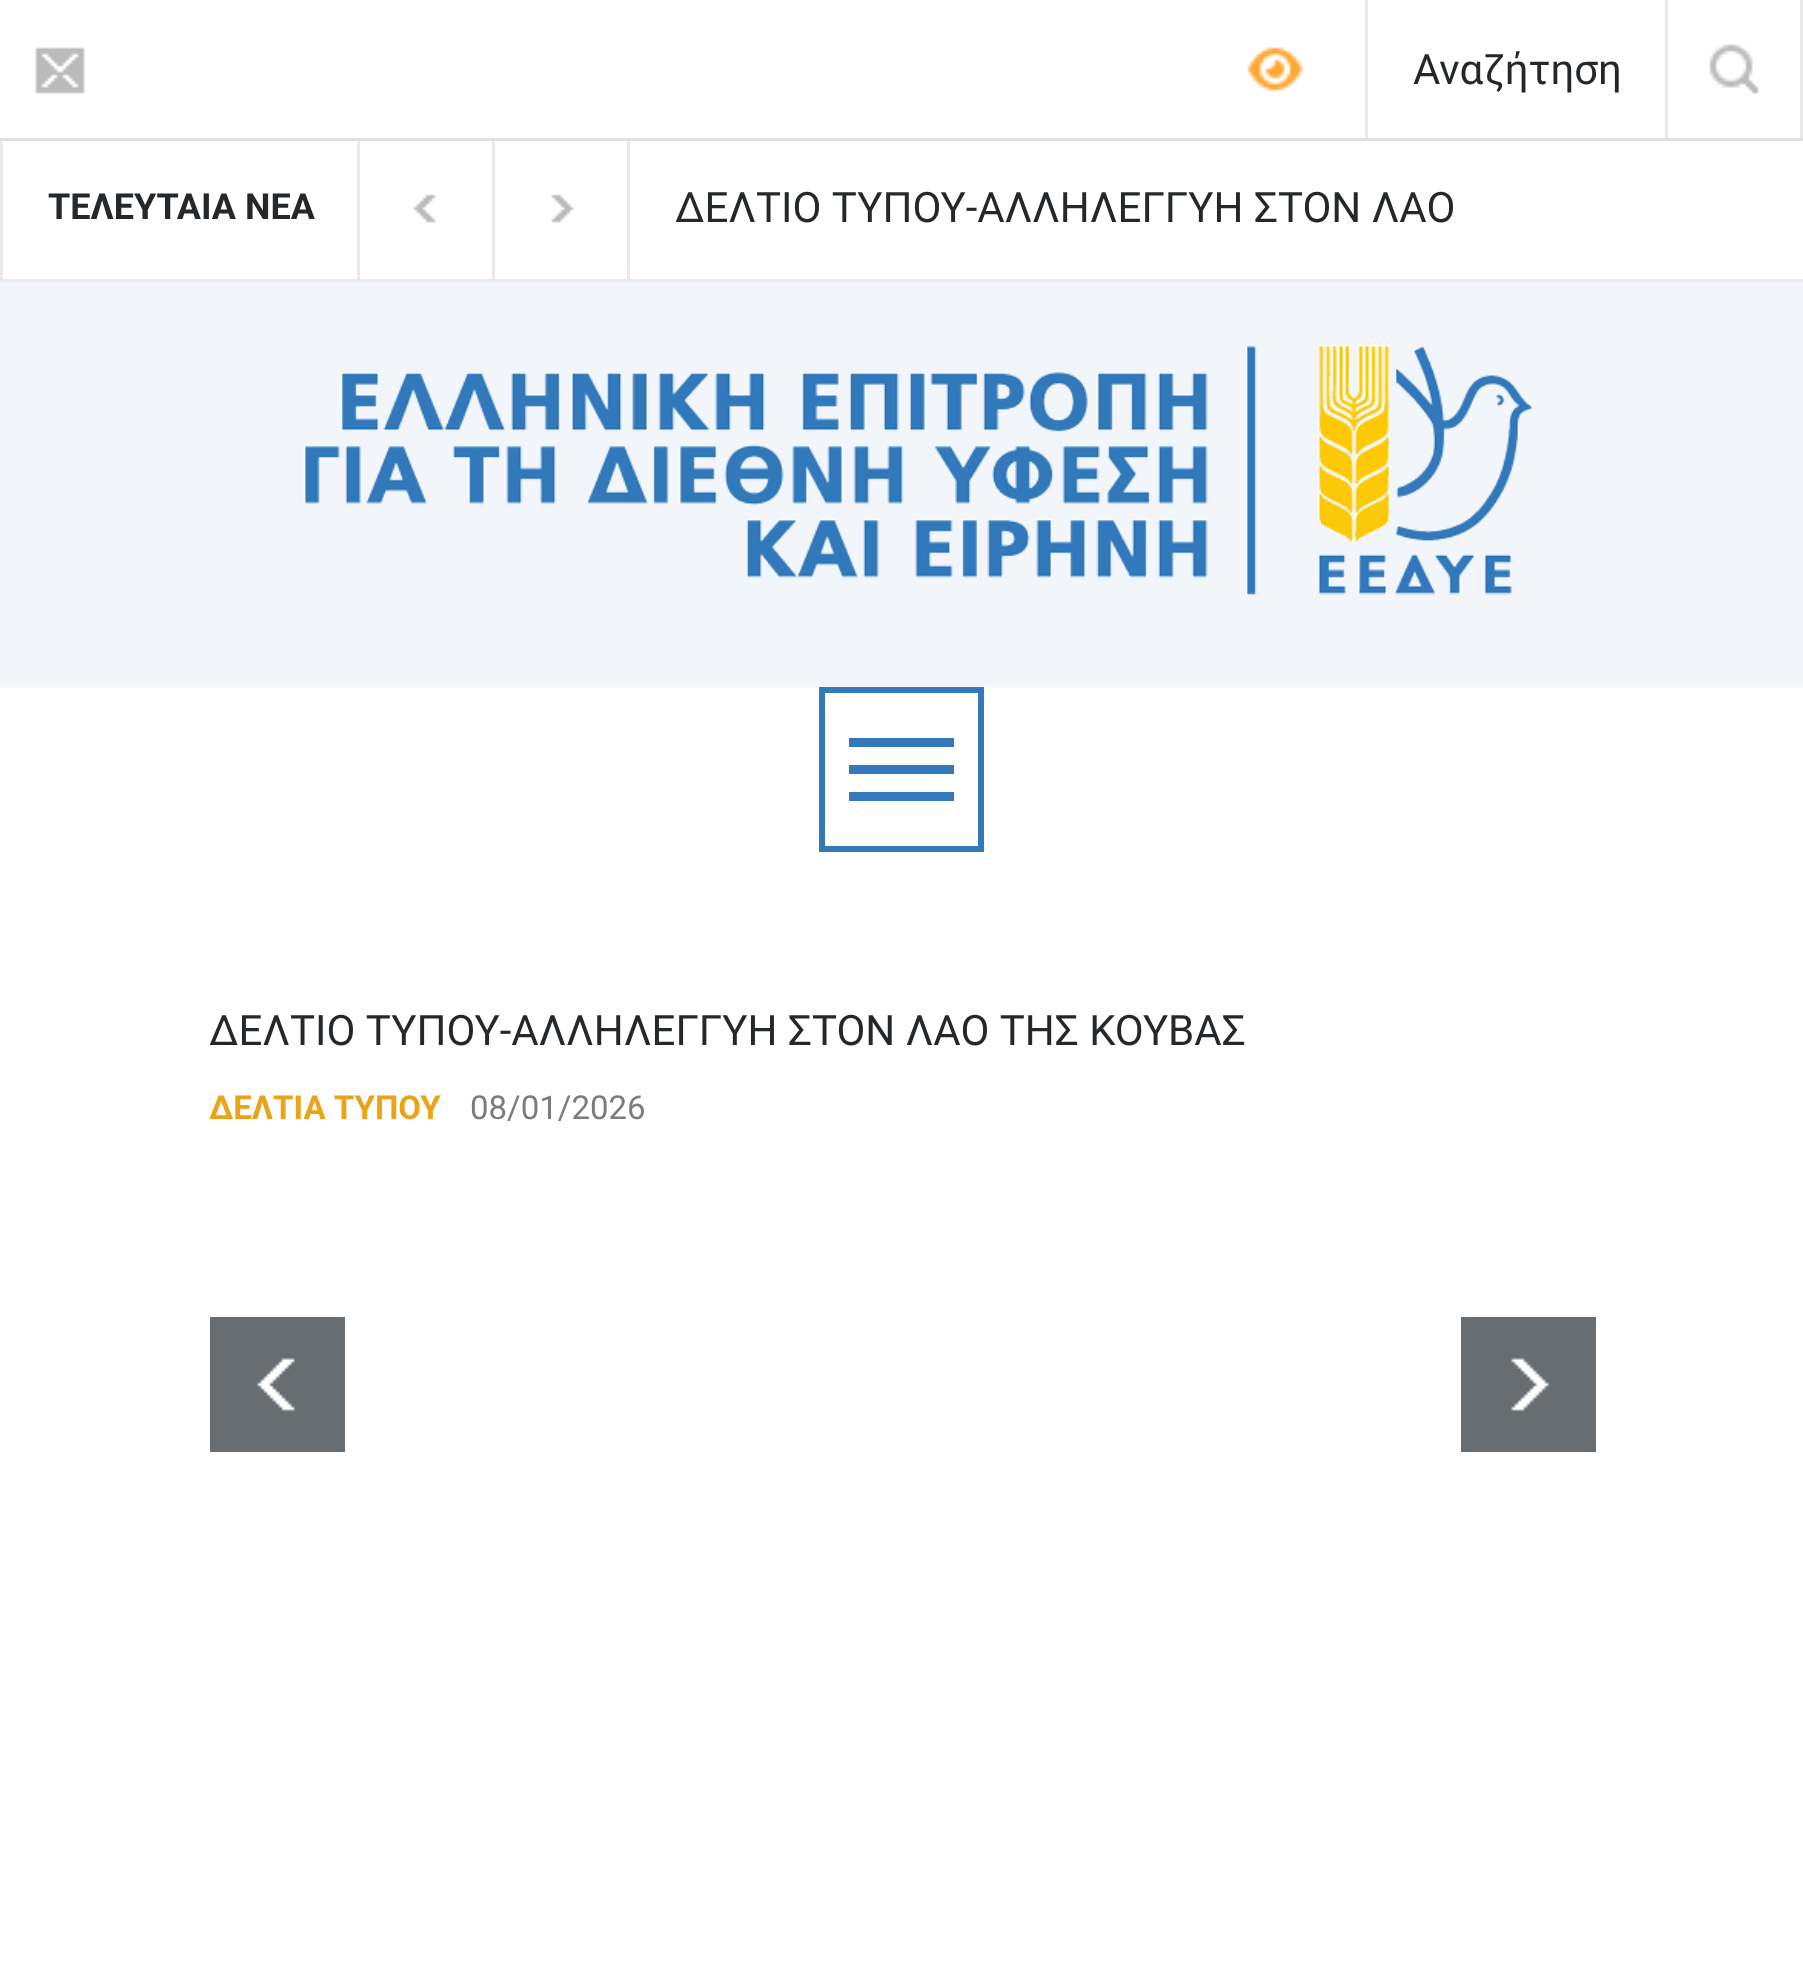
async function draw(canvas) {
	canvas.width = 1803;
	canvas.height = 1969;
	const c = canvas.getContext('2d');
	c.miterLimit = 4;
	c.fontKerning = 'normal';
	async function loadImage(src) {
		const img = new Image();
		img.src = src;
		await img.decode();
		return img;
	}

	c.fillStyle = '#fff';
	c.fillRect(0, 0, 1803, 1969);
	c.fillStyle = '#e9e9e9';
	c.fillRect(0, 279, 1803, 3);
	c.drawImage(await loadImage('img1.png'), 35, 47, 50, 47);
	c.drawImage(await loadImage('img2.png'), 1247, 47, 56, 44);
	for (const [x, y, w, h, color] of [
		[1800, 0, 3, 138, '#e9e9e9'],
		[1365, 0, 3, 138, '#e9e9e9'],
		[1665, 0, 3, 138, '#e9e9e9'],
	]) {
		c.fillStyle = color;
		c.fillRect(x, y, w, h);
	}
	c.font = '42px Roboto';
	c.fillStyle = '#25282a';
	c.fillText('Αναζήτηση', 1413, 84);
	c.drawImage(await loadImage('img3.png'), 1709, 44, 50, 50);
	for (const [x, y, w, h, color] of [
		[0, 138, 1803, 3, '#e0e0e0'],
		[357, 141, 3, 138, '#e9e9e9'],
		[0, 141, 3, 138, '#e9e9e9'],
	]) {
		c.fillStyle = color;
		c.fillRect(x, y, w, h);
	}
	c.font = 'bold 36px Roboto';
	c.fillStyle = '#25282a';
	c.fillText('ΤΕΛΕΥΤΑΙΑ ΝΕΑ', 48, 219);
	c.fillStyle = '#e9e9e9';
	c.fillRect(492, 141, 3, 138);
	c.drawImage(await loadImage('img4.png'), 413, 194, 23, 29);
	c.fillRect(627, 141, 3, 138);
	c.drawImage(await loadImage('img5.png'), 551, 194, 23, 29);
	c.font = '42px Roboto';
	c.fillStyle = '#25282a';
	c.fillText('ΔΕΛΤΙΟ ΤΥΠΟΥ-ΑΛΛΗΛΕΓΓΥΗ ΣΤΟΝ ΛΑΟ', 675, 222);
	c.fillStyle = '#f2f6fb';
	c.fillRect(0, 282, 1803, 405);
	c.drawImage(await loadImage('img6.png'), 303, 344, 1229, 252);
	c.strokeStyle = '#3379bc';
	c.lineWidth = 6;
	c.strokeRect(822, 690, 159, 159);
	for (const [x, y, w, h, color] of [
		[849, 738, 105, 9, '#3379bc'],
		[849, 765, 105, 9, '#3379bc'],
		[849, 792, 105, 9, '#3379bc'],
	]) {
		c.fillStyle = color;
		c.fillRect(x, y, w, h);
	}
	c.fillStyle = '#25282a';
	c.fillText('ΔΕΛΤΙΟ ΤΥΠΟΥ-ΑΛΛΗΛΕΓΓΥΗ ΣΤΟΝ ΛΑΟ ΤΗΣ ΚΟΥΒΑΣ', 209, 1045);
	c.save();
	c.beginPath();
	c.rect(210, 942, 1386, 1014);
	c.clip();
	c.font = 'bold 33px Roboto';
	c.fillStyle = '#eba417';
	c.fillText('ΔΕΛΤΙΑ ΤΥΠΟΥ', 209, 1119);
	c.restore();
	c.font = '33px Roboto';
	c.fillStyle = '#7c7c7c';
	c.fillText('08/01/2026', 470, 1119);
	c.fillStyle = '#686d72';
	c.fillRect(210, 1317, 135, 135);
	c.drawImage(await loadImage('img7.png'), 257, 1358, 38, 53);
	c.fillRect(1461, 1317, 135, 135);
	c.drawImage(await loadImage('img8.png'), 1511, 1358, 39, 53);
}

draw(document.querySelector('canvas'));
